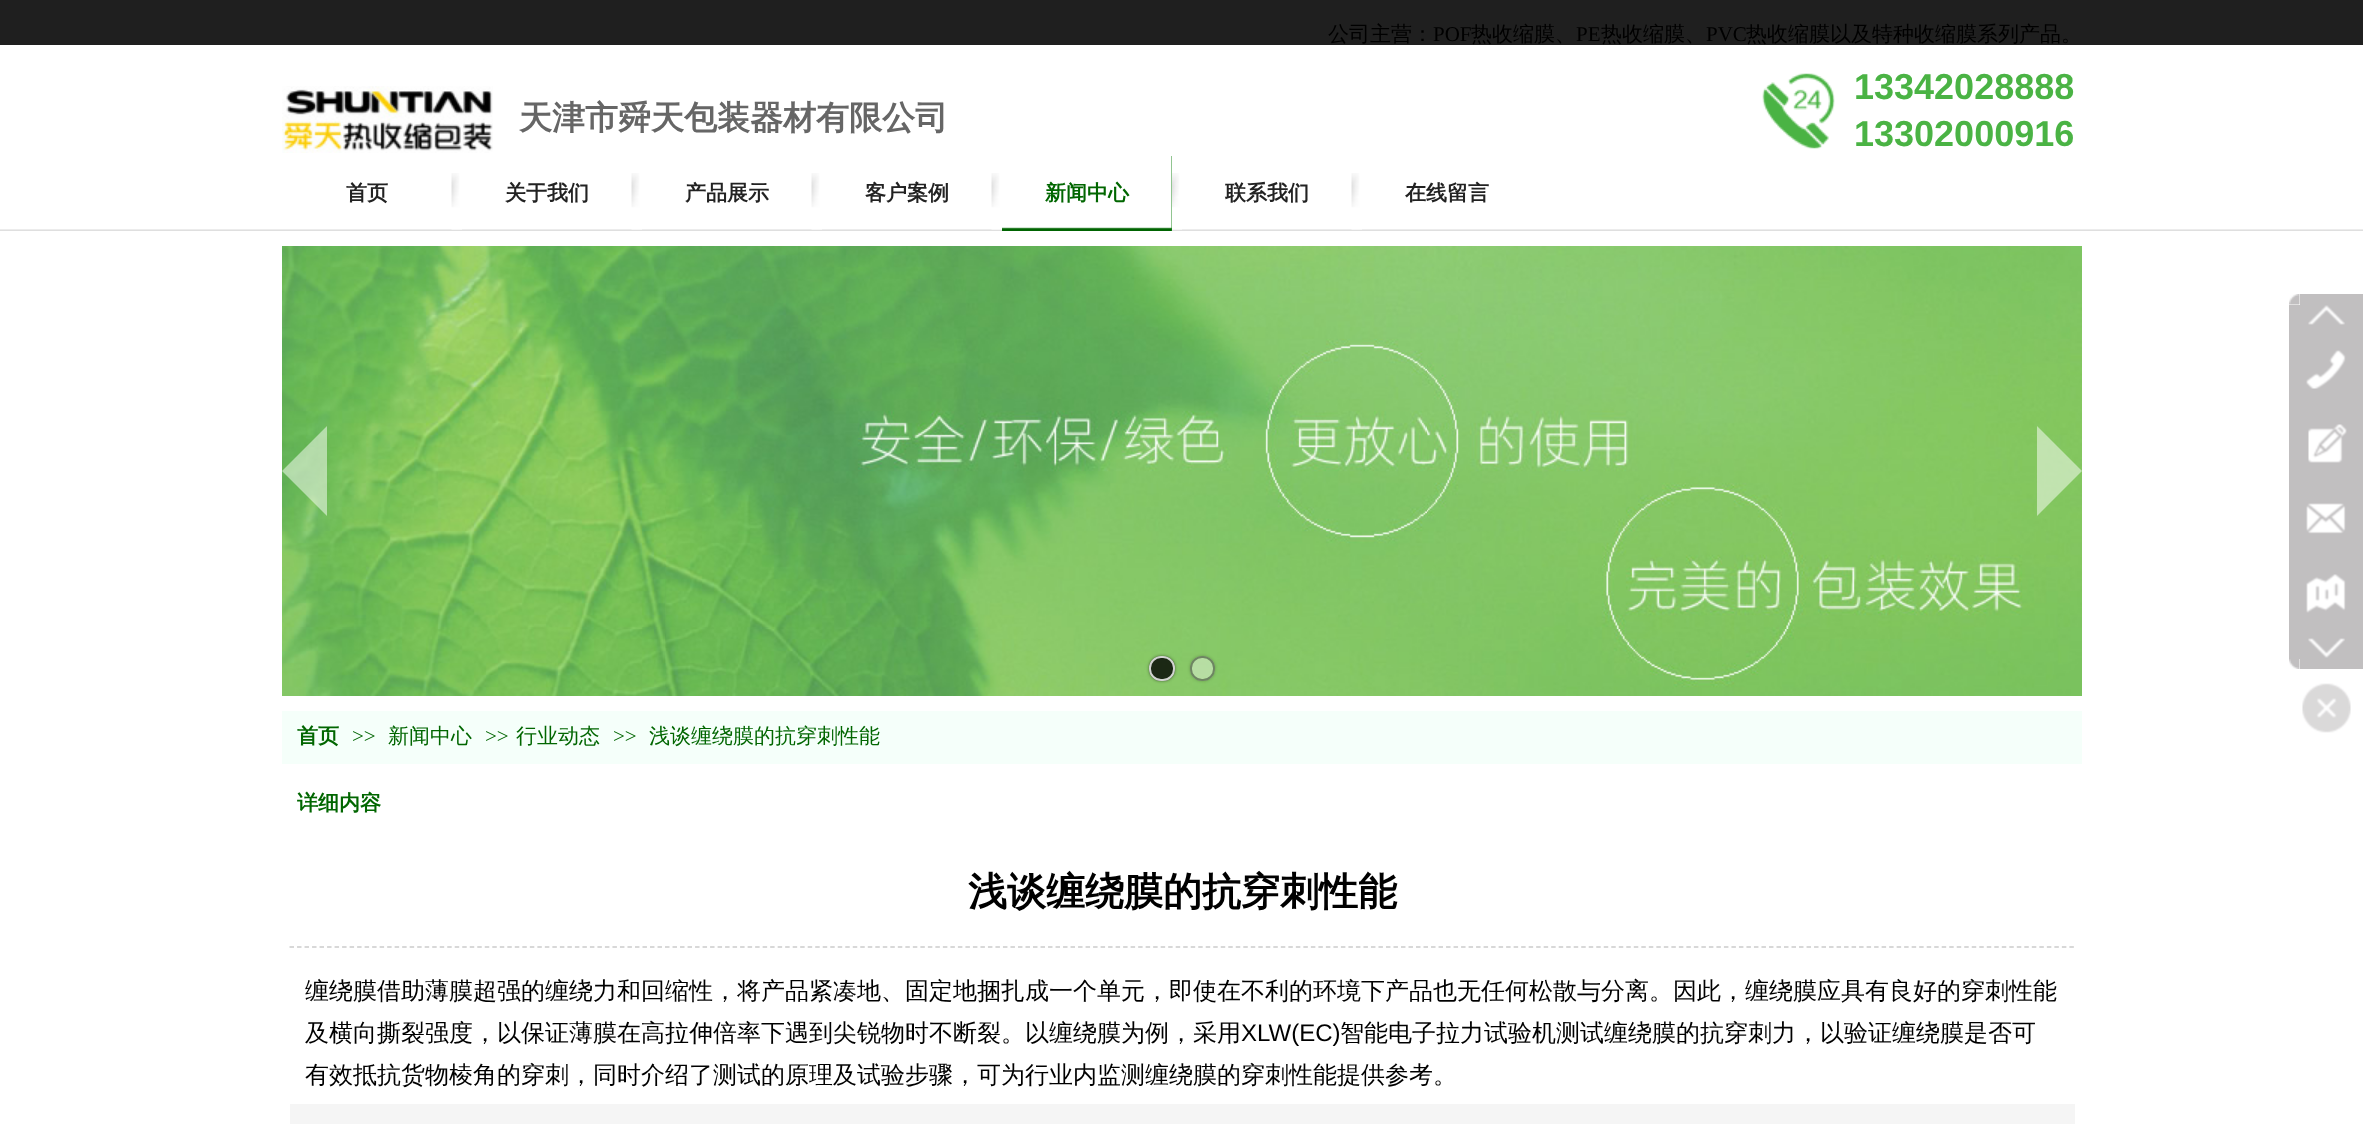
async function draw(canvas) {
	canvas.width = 2363;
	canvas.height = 1124;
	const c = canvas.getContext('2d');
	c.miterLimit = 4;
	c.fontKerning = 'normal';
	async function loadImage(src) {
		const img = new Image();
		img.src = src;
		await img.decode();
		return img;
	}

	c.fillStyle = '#fff';
	c.fillRect(0, 0, 2363, 1124);
	c.fillStyle = '#1f1f1f';
	c.fillRect(0, 0, 2363, 45);
	c.font = '500 21px WenQuanYi Zen Hei';
	c.fillStyle = '#000';
	c.fillText('公司主营：', 1328, 41);
	c.font = '21px Liberation Serif';
	c.fillText('POF', 1433, 41);
	c.font = '500 21px WenQuanYi Zen Hei';
	c.fillText('热收缩膜、', 1471, 41);
	c.font = '21px Liberation Serif';
	c.fillText('PE', 1576, 41);
	c.font = '500 21px WenQuanYi Zen Hei';
	c.fillText('热收缩膜、', 1601, 41);
	c.font = '21px Liberation Serif';
	c.fillText('PVC', 1706, 41);
	c.font = '500 21px WenQuanYi Zen Hei';
	c.fillText('热收缩膜以及特种收缩膜系列产品。', 1746, 41);
	c.drawImage(await loadImage('img1.png'), 282, 86, 211, 67);
	c.font = 'bold 33px WenQuanYi Zen Hei';
	c.fillStyle = '#666';
	c.fillText('天津市舜天包装器材有限公司', 519, 129);
	c.drawImage(await loadImage('img2.png'), 1762, 73, 73, 76);
	c.font = 'bold 36px Liberation Sans';
	c.fillStyle = '#4ab344';
	c.fillText('13342028888', 1854, 99);
	c.fillText('13302000916', 1854, 146);
	c.font = 'bold 21px WenQuanYi Zen Hei';
	c.fillStyle = '#222';
	c.fillText('首页', 346, 200);
	c.drawImage(await loadImage('img7.png'), 0, 229, 2363, 2);
	c.drawImage(await loadImage('img3.png'), 451, 173, 11, 57);
	c.fillText('关于我们', 505, 200);
	c.drawImage(await loadImage('img4.png'), 631, 173, 11, 57);
	c.fillText('产品展示', 685, 200);
	c.drawImage(await loadImage('img3.png'), 811, 173, 11, 57);
	c.fillText('客户案例', 865, 200);
	c.drawImage(await loadImage('img3.png'), 991, 173, 11, 57);
	c.fillStyle = '#228b22';
	c.fillRect(1171, 156, 1, 75);
	c.drawImage(await loadImage('img5.png'), 1002, 156, 170, 75);
	c.fillStyle = '#016600';
	c.fillText('新闻中心', 1045, 200);
	c.drawImage(await loadImage('img6.png'), 1172, 173, 10, 57);
	c.fillStyle = '#222';
	c.fillText('联系我们', 1225, 200);
	c.drawImage(await loadImage('img4.png'), 1351, 173, 11, 57);
	c.fillText('在线留言', 1405, 200);
	c.drawImage(await loadImage('img8.png'), 282, 246, 1800, 450);
	c.fillStyle = '#ffffff80';
	c.beginPath();
	c.moveTo(327, 426);
	c.lineTo(327, 516);
	c.lineTo(282, 471);
	c.closePath();
	c.fill();
	c.beginPath();
	c.moveTo(2037, 516);
	c.lineTo(2037, 426);
	c.lineTo(2082, 471);
	c.closePath();
	c.fill();
	c.save();
	c.beginPath();
	c.moveTo(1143, 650);
	c.lineTo(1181, 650);
	c.lineTo(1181, 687);
	c.lineTo(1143, 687);
	c.closePath();
	c.moveTo(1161, 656);
	c.lineTo(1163, 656);
	c.bezierCurveTo(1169.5, 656, 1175, 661.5, 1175, 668);
	c.lineTo(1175, 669);
	c.bezierCurveTo(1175, 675.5, 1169.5, 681, 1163, 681);
	c.lineTo(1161, 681);
	c.bezierCurveTo(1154.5, 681, 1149, 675.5, 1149, 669);
	c.lineTo(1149, 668);
	c.bezierCurveTo(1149, 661.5, 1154.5, 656, 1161, 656);
	c.closePath();
	c.clip('evenodd');
	c.fillStyle = '#0000007a';
	c.filter = 'blur(1.5px)';
	c.beginPath();
	c.roundRect(1149, 656, 26, 25, 12);
	c.fill();
	c.filter = 'none';
	c.restore();
	c.fillStyle = '#000000cc';
	c.beginPath();
	c.roundRect(1149, 656, 26, 25, 12);
	c.fill();
	c.beginPath();
	c.roundRect(1150, 657, 24, 23, 11);
	c.strokeStyle = '#ffffffcc';
	c.lineWidth = 2;
	c.stroke();
	c.save();
	c.beginPath();
	c.moveTo(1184, 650);
	c.lineTo(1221, 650);
	c.lineTo(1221, 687);
	c.lineTo(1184, 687);
	c.closePath();
	c.moveTo(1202, 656);
	c.lineTo(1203, 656);
	c.bezierCurveTo(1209.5, 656, 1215, 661.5, 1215, 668);
	c.lineTo(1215, 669);
	c.bezierCurveTo(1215, 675.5, 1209.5, 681, 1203, 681);
	c.lineTo(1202, 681);
	c.bezierCurveTo(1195.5, 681, 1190, 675.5, 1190, 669);
	c.lineTo(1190, 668);
	c.bezierCurveTo(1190, 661.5, 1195.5, 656, 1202, 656);
	c.closePath();
	c.clip('evenodd');
	c.fillStyle = '#0000003d';
	c.filter = 'blur(1.5px)';
	c.beginPath();
	c.roundRect(1190, 656, 25, 25, 12);
	c.fill();
	c.filter = 'none';
	c.restore();
	c.fillStyle = '#ffffff66';
	c.beginPath();
	c.roundRect(1190, 656, 25, 25, 12);
	c.fill();
	c.beginPath();
	c.roundRect(1191, 657, 23, 23, 11);
	c.strokeStyle = '#00000066';
	c.stroke();
	c.drawImage(await loadImage('img9.png'), 2289, 294, 11, 11);
	c.fillStyle = '#c1bfc0';
	c.fillRect(2300, 294, 63, 11);
	c.fillRect(2289, 305, 74, 354);
	c.drawImage(await loadImage('img10.png'), 2308, 305, 37, 20);
	c.drawImage(await loadImage('img11.png'), 2306, 350, 40, 39);
	c.drawImage(await loadImage('img12.png'), 2308, 424, 39, 39);
	c.drawImage(await loadImage('img13.png'), 2306, 503, 40, 31);
	c.drawImage(await loadImage('img14.png'), 2306, 574, 40, 39);
	c.drawImage(await loadImage('img15.png'), 2308, 638, 37, 20);
	c.drawImage(await loadImage('img16.png'), 2289, 659, 11, 10);
	c.fillRect(2300, 659, 63, 10);
	c.drawImage(await loadImage('img17.png'), 2302, 683, 49, 50);
	c.fillStyle = '#f5fffa';
	c.fillRect(282, 711, 1800, 53);
	c.fillStyle = '#016600';
	c.fillText('首页', 297, 743);
	c.font = '21px Liberation Serif';
	c.fillText('>>', 352, 743);
	c.font = '500 21px WenQuanYi Zen Hei';
	c.fillText('新闻中心', 388, 743);
	c.font = '21px Liberation Serif';
	c.fillText('>>', 485, 743);
	c.font = '500 21px WenQuanYi Zen Hei';
	c.fillText('行业动态', 516, 743);
	c.font = '21px Liberation Serif';
	c.fillText('>>', 613, 743);
	c.font = '500 21px WenQuanYi Zen Hei';
	c.fillText('浅谈缠绕膜的抗穿刺性能', 649, 743);
	c.font = 'bold 21px WenQuanYi Zen Hei';
	c.fillText('详细内容', 297, 810);
	c.beginPath();
	c.moveTo(289.5, 947);
	c.lineTo(2074.5, 947);
	c.strokeStyle = '#ccc';
	c.lineWidth = 1.5;
	c.setLineDash([4.5, 3.01]);
	c.stroke();
	c.font = 'bold 39px WenQuanYi Zen Hei';
	c.fillStyle = '#000';
	c.fillText('浅谈缠绕膜的抗穿刺性能', 968, 905);
	c.font = '500 24px WenQuanYi Zen Hei';
	c.fillText('缠绕膜借助薄膜超强的缠绕力和回缩性，将产品紧凑地、固定地捆扎成一个单元，即使在不利的环境下产品也无任何松散与分离。因此，缠绕膜应具有良好的穿刺性能', 305, 999);
	c.fillText('及横向撕裂强度，以保证薄膜在高拉伸倍率下遇到尖锐物时不断裂。以缠绕膜为例，采用', 305, 1041);
	c.font = '24px Liberation Sans';
	c.fillText('XLW(EC)', 1241, 1041);
	c.font = '500 24px WenQuanYi Zen Hei';
	c.fillText('智能电子拉力试验机测试缠绕膜的抗穿刺力，以验证缠绕膜是否可', 1340, 1041);
	c.fillText('有效抵抗货物棱角的穿刺，同时介绍了测试的原理及试验步骤，可为行业内监测缠绕膜的穿刺性能提供参考。', 305, 1083);
	c.fillStyle = '#f5f5f5';
	c.fillRect(290, 1104, 1785, 20);
}

draw(document.querySelector('canvas'));
